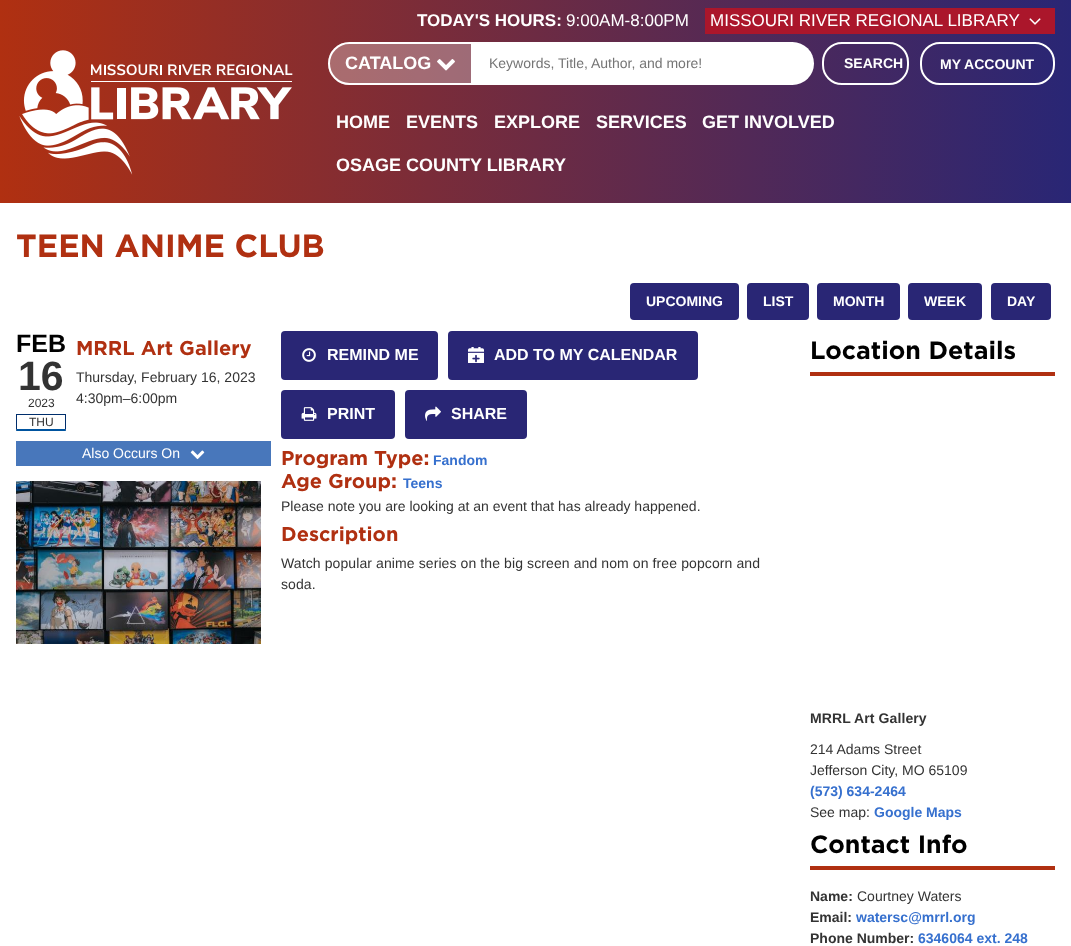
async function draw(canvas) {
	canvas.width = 1071;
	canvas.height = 946;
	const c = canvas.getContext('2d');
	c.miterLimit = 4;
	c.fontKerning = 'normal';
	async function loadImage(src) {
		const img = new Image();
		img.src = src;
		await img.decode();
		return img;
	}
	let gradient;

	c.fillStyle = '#fff';
	c.fillRect(0, 0, 1071, 946);
	gradient = c.createLinearGradient(0, 102, 1071, 101);
	gradient.addColorStop(0, '#b03011');
	gradient.addColorStop(1, '#292675');
	c.fillStyle = gradient;
	c.fillRect(0, 0, 1071, 203);
	c.drawImage(await loadImage('img1.png'), 19, 50, 274, 125);
	c.font = 'bold 17px Liberation Sans';
	c.fillStyle = '#fff';
	c.fillText('TODAY\'S HOURS:', 417, 26);
	c.font = '17px Liberation Sans';
	c.fillText('9:00AM-8:00PM', 566, 26);
	c.fillStyle = '#ab162b';
	c.fillRect(705, 8, 350, 26);
	c.drawImage(await loadImage('img2.png'), 1029, 18, 12, 7);
	c.fillStyle = '#fff';
	c.fillText('MISSOURI RIVER REGIONAL LIBRARY', 710, 26);
	c.fillStyle = '#ffffff4d';
	c.beginPath();
	c.roundRect(328, 42, 145, 43, [21.5, 0, 0, 21.5]);
	c.fill();
	c.drawImage(await loadImage('img3.png'), 437, 59, 18, 12);
	c.beginPath();
	c.roundRect(329, 43, 143, 41, [20.5, 0, 0, 20.5]);
	c.strokeStyle = '#fff';
	c.lineWidth = 2;
	c.stroke();
	c.font = 'bold 18px Liberation Sans';
	c.fillStyle = '#fff';
	c.fillText('CATALOG', 345, 69);
	c.beginPath();
	c.roundRect(473, 42, 341, 43, [0, 21.5, 21.5, 0]);
	c.fill();
	c.font = '14px Liberation Sans';
	c.fillStyle = '#757575';
	c.fillText('Keywords, Title, Author, and more!', 489, 68);
	c.beginPath();
	c.roundRect(823, 43, 85, 41, 19);
	c.stroke();
	c.font = 'bold 14px Liberation Sans';
	c.fillStyle = '#fff';
	c.fillText('SEARCH', 844, 68);
	c.beginPath();
	c.roundRect(921, 43, 133, 41, 19);
	c.stroke();
	c.fillText('MY ACCOUNT', 940, 69);
	c.font = 'bold 18px Liberation Sans';
	for (const [text, x, y] of [
		['HOME', 336, 128],
		['EVENTS', 406, 128],
		['EXPLORE', 494, 128],
		['SERVICES', 596, 128],
		['GET INVOLVED', 702, 128],
		['OSAGE COUNTY LIBRARY', 336, 171],
	]) {
		c.fillText(text, x, y);
	}
	c.font = 'bold 32px Gotham';
	c.fillStyle = '#b03011';
	c.fillText('TEEN ANIME CLUB', 16, 257);
	c.fillStyle = '#292675';
	c.beginPath();
	c.roundRect(630, 283, 109, 37, 4);
	c.fill();
	c.font = 'bold 14px Liberation Sans';
	c.fillStyle = '#fff';
	c.fillText('UPCOMING', 646, 306);
	c.fillStyle = '#292675';
	c.beginPath();
	c.roundRect(747, 283, 62, 37, 4);
	c.fill();
	c.fillStyle = '#fff';
	c.fillText('LIST', 763, 306);
	c.fillStyle = '#292675';
	c.beginPath();
	c.roundRect(817, 283, 83, 37, 4);
	c.fill();
	c.fillStyle = '#fff';
	c.fillText('MONTH', 833, 306);
	c.fillStyle = '#292675';
	c.beginPath();
	c.roundRect(908, 283, 74, 37, 4);
	c.fill();
	c.fillStyle = '#fff';
	c.fillText('WEEK', 924, 306);
	c.fillStyle = '#292675';
	c.beginPath();
	c.roundRect(991, 283, 60, 37, 4);
	c.fill();
	c.fillStyle = '#fff';
	c.fillText('DAY', 1007, 306);
	c.font = 'bold 25px Liberation Sans';
	c.fillStyle = '#000';
	c.fillText('FEB', 16, 352);
	c.font = 'bold 41px Liberation Sans';
	c.fillStyle = '#333';
	c.fillText('16', 18, 390);
	c.font = '12px Liberation Sans';
	c.fillText('2023', 28, 407);
	c.fillStyle = '#002e6c';
	c.fillRect(16, 414, 50, 1);
	c.beginPath();
	c.moveTo(66, 414);
	c.lineTo(66, 431);
	c.lineTo(65, 429);
	c.lineTo(65, 415);
	c.closePath();
	c.fill();
	c.fillStyle = '#00549f';
	c.beginPath();
	c.moveTo(66, 431);
	c.lineTo(16, 431);
	c.lineTo(17, 429);
	c.lineTo(65, 429);
	c.closePath();
	c.fill();
	c.fillStyle = '#002e6c';
	c.beginPath();
	c.moveTo(16, 431);
	c.lineTo(16, 414);
	c.lineTo(17, 415);
	c.lineTo(17, 429);
	c.closePath();
	c.fill();
	c.fillStyle = '#333';
	c.fillText('THU', 29, 426);
	c.font = 'bold 20px Gotham';
	c.fillStyle = '#b03011';
	c.fillText('MRRL Art Gallery', 76, 355);
	c.font = '14px Liberation Sans';
	c.fillStyle = '#333';
	c.fillText('Thursday, February 16, 2023', 76, 382);
	c.fillText('4:30pm–6:00pm', 76, 403);
	c.fillStyle = '#4877bb';
	c.fillRect(16, 441, 255, 25);
	c.fillStyle = '#fff';
	c.fillText('Also Occurs On', 82, 458);
	c.drawImage(await loadImage('img4.png'), 190, 450, 15, 10);
	c.drawImage(await loadImage('img5.png'), 16, 481, 245, 163);
	c.fillStyle = '#292675';
	c.beginPath();
	c.roundRect(281, 331, 157, 49, 4);
	c.fill();
	c.drawImage(await loadImage('img6.png'), 302, 348, 14, 14);
	c.font = 'bold 16px Liberation Sans';
	c.fillStyle = '#fff';
	c.fillText('REMIND ME', 327, 360);
	c.fillStyle = '#292675';
	c.beginPath();
	c.roundRect(448, 331, 250, 49, 4);
	c.fill();
	c.drawImage(await loadImage('img7.png'), 468, 347, 16, 16);
	c.fillStyle = '#fff';
	c.fillText('ADD TO MY CALENDAR', 494, 360);
	c.fillStyle = '#292675';
	c.beginPath();
	c.roundRect(281, 390, 114, 49, 4);
	c.fill();
	c.drawImage(await loadImage('img8.png'), 301, 407, 16, 14);
	c.fillStyle = '#fff';
	c.fillText('PRINT', 327, 419);
	c.fillStyle = '#292675';
	c.beginPath();
	c.roundRect(405, 390, 122, 49, 4);
	c.fill();
	c.drawImage(await loadImage('img9.png'), 425, 406, 16, 15);
	c.fillStyle = '#fff';
	c.fillText('SHARE', 451, 419);
	c.font = 'bold 20px Gotham';
	c.fillStyle = '#b03011';
	c.fillText('Program Type:', 281, 465);
	c.font = 'bold 14px Liberation Sans';
	c.fillStyle = '#3670ce';
	c.fillText('Fandom', 433, 465);
	c.font = 'bold 20px Gotham';
	c.fillStyle = '#b03011';
	c.fillText('Age Group:', 281, 488);
	c.font = 'bold 14px Liberation Sans';
	c.fillStyle = '#3670ce';
	c.fillText('Teens', 403, 488);
	c.font = '14px Liberation Sans';
	c.fillStyle = '#333';
	c.fillText('Please note you are looking at an event that has already happened.', 281, 511);
	c.font = 'bold 20px Gotham';
	c.fillStyle = '#b03011';
	c.fillText('Description', 281, 541);
	c.letterSpacing = '0.1px';
	c.font = '14px Liberation Sans';
	c.fillStyle = '#333';
	c.fillText('Watch popular anime series on the big screen and nom on free popcorn and', 281, 568);
	c.fillText('soda.', 281, 589);
	c.fillStyle = '#b03011';
	c.fillRect(810, 372, 245, 4);
	c.letterSpacing = '0px';
	c.font = 'bold 25px Gotham';
	c.fillStyle = '#000';
	c.fillText('Location Details', 810, 359);
	c.letterSpacing = '0.1px';
	c.font = 'bold 14px Liberation Sans';
	c.fillStyle = '#333';
	c.fillText('MRRL Art Gallery', 810, 723);
	c.letterSpacing = '0px';
	c.font = '14px Liberation Sans';
	c.fillText('214 Adams Street', 810, 754);
	c.fillText('Jefferson City, MO 65109', 810, 775);
	c.font = 'bold 14px Liberation Sans';
	c.fillStyle = '#3670ce';
	c.fillText('(573) 634-2464', 810, 796);
	c.font = '14px Liberation Sans';
	c.fillStyle = '#333';
	c.fillText('See map:', 810, 817);
	c.font = 'bold 14px Liberation Sans';
	c.fillStyle = '#3670ce';
	c.fillText('Google Maps', 874, 817);
	c.fillStyle = '#b03011';
	c.fillRect(810, 866, 245, 4);
	c.font = 'bold 25px Gotham';
	c.fillStyle = '#000';
	c.fillText('Contact Info', 810, 853);
	c.font = 'bold 14px Liberation Sans';
	c.fillStyle = '#333';
	c.fillText('Name:', 810, 901);
	c.font = '14px Liberation Sans';
	c.fillText('Courtney Waters', 857, 901);
	c.font = 'bold 14px Liberation Sans';
	c.fillText('Email:', 810, 922);
	c.fillStyle = '#3670ce';
	c.fillText('watersc@mrrl.org', 856, 922);
	c.fillStyle = '#333';
	c.fillText('Phone Number:', 810, 943);
	c.fillStyle = '#3670ce';
	c.fillText('6346064 ext. 248', 918, 943);
}

draw(document.querySelector('canvas'));
